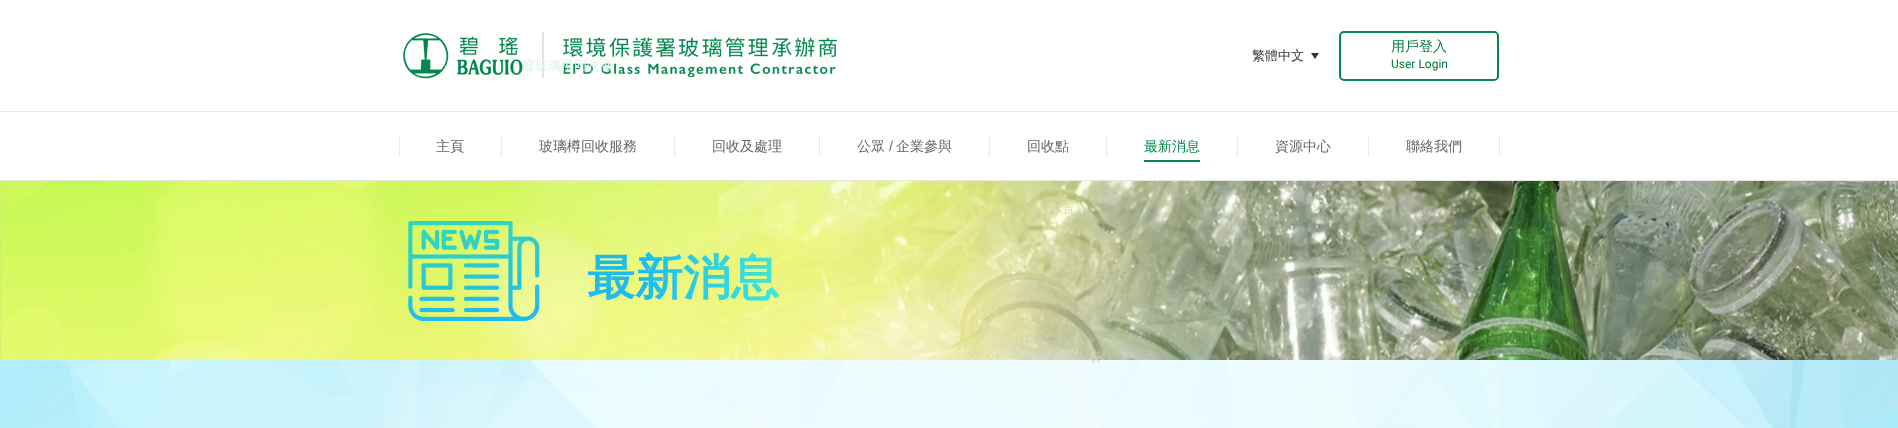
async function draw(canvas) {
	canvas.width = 1898;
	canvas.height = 428;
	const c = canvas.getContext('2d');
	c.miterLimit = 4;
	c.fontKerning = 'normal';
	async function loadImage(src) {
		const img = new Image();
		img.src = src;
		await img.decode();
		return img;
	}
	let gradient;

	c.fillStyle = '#fff';
	c.fillRect(0, 0, 1898, 428);
	c.drawImage(await loadImage('img1.png'), 0, 360, 1898, 68);
	c.fillStyle = '#e7e7e0';
	c.fillRect(0, 180, 1898, 1);
	c.drawImage(await loadImage('img2.png'), 403, 32, 434, 47);
	c.font = '500 13px WenQuanYi Zen Hei';
	c.fillStyle = '#333';
	c.fillText('繁體中文', 1252, 60);
	c.beginPath();
	c.moveTo(1311, 53);
	c.lineTo(1319, 53);
	c.lineTo(1315, 59);
	c.closePath();
	c.fill();
	c.beginPath();
	c.roundRect(1340, 32, 158, 48, 4);
	c.strokeStyle = '#05884e';
	c.lineWidth = 2;
	c.stroke();
	c.font = '500 14px WenQuanYi Zen Hei';
	c.fillStyle = '#007938';
	c.fillText('用戶登入', 1391, 51);
	c.font = '12px Roboto';
	c.fillText('User Login', 1391, 68);
	c.fillStyle = '#e7e7e0';
	c.fillRect(0, 111, 1898, 1);
	c.fillStyle = '#e7e7e7';
	c.fillRect(399, 136, 1, 20);
	c.font = '500 14px WenQuanYi Zen Hei';
	c.fillStyle = '#666';
	c.fillText('主頁', 436, 151);
	c.fillStyle = '#e7e7e7';
	c.fillRect(501, 136, 1, 20);
	c.fillStyle = '#666';
	c.fillText('玻璃樽回收服務', 539, 151);
	c.fillStyle = '#e7e7e7';
	c.fillRect(674, 136, 1, 20);
	c.fillStyle = '#666';
	c.fillText('回收及處理', 712, 151);
	c.fillStyle = '#e7e7e7';
	c.fillRect(819, 136, 1, 20);
	c.fillStyle = '#666';
	c.fillText('公眾', 857, 151);
	c.font = '14px Liberation Sans';
	c.fillText('/', 889, 151);
	c.font = '500 14px WenQuanYi Zen Hei';
	c.fillText('企業參與', 896, 151);
	c.fillStyle = '#e7e7e7';
	c.fillRect(989, 136, 1, 20);
	c.fillStyle = '#666';
	c.fillText('回收點', 1027, 151);
	c.drawImage(await loadImage('img3.png'), 0, 181, 1898, 179);
	c.font = '500 13px WenQuanYi Zen Hei';
	c.fillStyle = '#dbe0a7';
	c.fillText('置', 1062, 213);
	c.fillStyle = '#d4dbc4';
	c.fillText('表', 1088, 361);
	c.fillStyle = '#e7e7e7';
	c.fillRect(1106, 136, 1, 20);
	c.font = '500 14px WenQuanYi Zen Hei';
	c.fillStyle = '#05884e';
	c.fillText('最新消息', 1144, 151);
	c.fillRect(1144, 160, 56, 2);
	c.fillStyle = '#e7e7e7';
	c.fillRect(1237, 136, 1, 20);
	c.fillStyle = '#666';
	c.fillText('資源中心', 1275, 151);
	c.fillStyle = '#e7e7e7';
	c.fillRect(1368, 136, 1, 20);
	c.fillStyle = '#666';
	c.fillText('聯絡我們', 1406, 151);
	c.fillStyle = '#e7e7e7';
	c.fillRect(1499, 136, 1, 20);
	c.font = '500 13px WenQuanYi Zen Hei';
	c.fillStyle = '#e0f0e9';
	c.fillText('廢玻璃樽回收廠', 522, 70);
	c.drawImage(await loadImage('img4.png'), 408, 221, 132, 100);
	c.font = 'bold 48px WenQuanYi Zen Hei';
	gradient = c.createLinearGradient(587, 278, 779, 278);
	gradient.addColorStop(0.3, '#1ebbf0');
	gradient.addColorStop(1, '#3fe7d9');
	c.fillStyle = gradient;
	c.fillText('最新消息', 587, 294);
}

draw(document.querySelector('canvas'));
